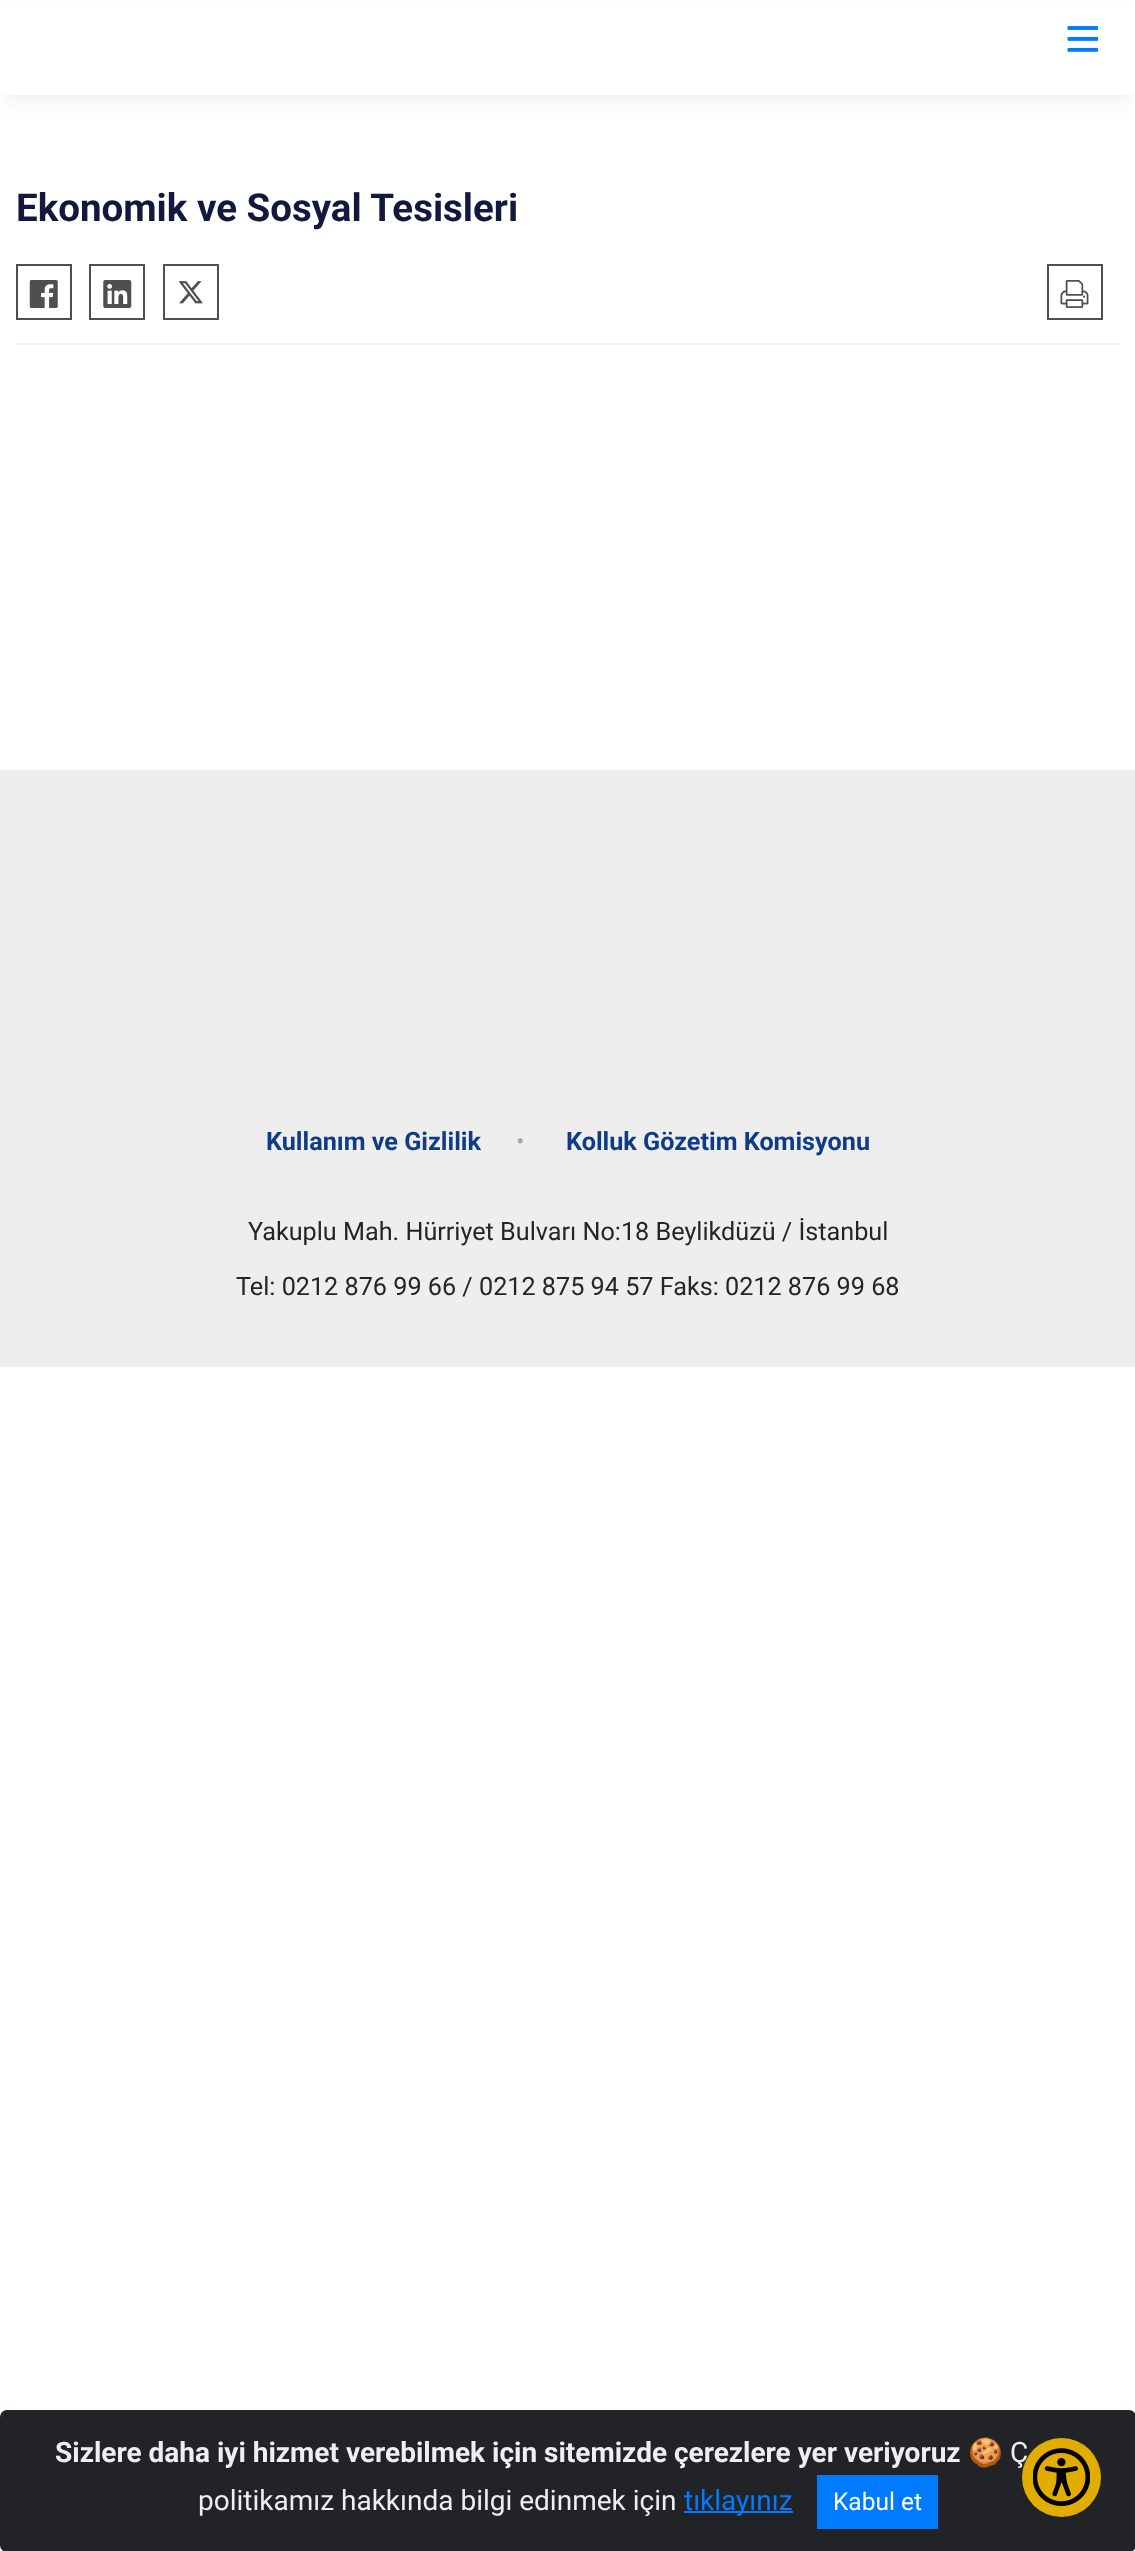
async function draw(canvas) {
	canvas.width = 1135;
	canvas.height = 2551;
	const c = canvas.getContext('2d');
	c.miterLimit = 4;
	c.fontKerning = 'normal';
	async function loadImage(src) {
		const img = new Image();
		img.src = src;
		await img.decode();
		return img;
	}

	c.fillStyle = '#fff';
	c.fillRect(0, 0, 1135, 2551);
	c.fillStyle = '#eeeeee9e';
	c.filter = 'blur(9px)';
	c.beginPath();
	c.rect(0, 11, 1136, 94);
	c.fill();
	c.filter = 'none';
	c.fillStyle = '#fff';
	c.fillRect(0, 5, 1135, 90);
	c.drawImage(await loadImage('img1.png'), 1067, 26, 32, 26);
	c.fillStyle = '#eee';
	c.fillRect(16, 343, 1104, 2);
	c.font = 'bold 38.5px Roboto';
	c.fillStyle = '#13183e';
	c.fillText('Ekonomik ve Sosyal Tesisleri', 16, 221);
	c.strokeStyle = '#4f4f4f';
	c.lineWidth = 2;
	c.strokeRect(17, 265, 54, 54);
	c.drawImage(await loadImage('img2.png'), 29, 280, 29, 28);
	c.strokeRect(90, 265, 54, 54);
	c.drawImage(await loadImage('img3.png'), 103, 280, 29, 28);
	c.strokeRect(164, 265, 54, 54);
	c.drawImage(await loadImage('img4.png'), 179, 281, 24, 23);
	c.strokeRect(1048, 265, 54, 54);
	c.drawImage(await loadImage('img5.png'), 1060, 280, 29, 28);
	c.fillStyle = '#eee';
	c.fillRect(0, 770, 1135, 597);
	c.font = 'bold 25.2px Roboto';
	c.fillStyle = '#103c86';
	c.fillText('Kullanım ve Gizlilik', 266, 1150);
	c.font = '25.2px Roboto';
	c.fillStyle = '#aaa';
	c.fillText('•', 516, 1150);
	c.font = 'bold 25.2px Roboto';
	c.fillStyle = '#103c86';
	c.fillText('Kolluk Gözetim Komisyonu', 566, 1150);
	c.font = '25.2px Roboto';
	c.fillStyle = '#252525';
	c.fillText('Yakuplu Mah. Hürriyet Bulvarı No:18 Beylikdüzü / İstanbul', 248, 1240);
	c.fillText('Tel: 0212 876 99 66 / 0212 875 94 57 Faks: 0212 876 99 68', 236, 1295);
	c.fillStyle = '#212327';
	c.beginPath();
	c.roundRect(0, 2410, 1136, 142, 7);
	c.fill();
	c.font = 'bold 28px Roboto';
	c.fillStyle = '#ecf0f1';
	c.fillText('Sizlere daha iyi hizmet verebilmek için sitemizde çerezlere yer veriyoruz', 55, 2462);
	c.font = '28px Noto Color Emoji';
	c.fillText('🍪', 968, 2462);
	c.font = '28px Roboto';
	c.fillText('Ç', 1010, 2462);
	c.fillText('politikamız hakkında bilgi edinmek için', 198, 2510);
	c.fillStyle = '#007bff';
	c.fillRect(684, 2511, 109, 2);
	c.fillText('tıklayınız', 684, 2510);
	c.fillRect(817, 2475, 121, 54);
	c.font = '24.5px Roboto';
	c.fillStyle = '#fff';
	c.fillText('Kabul et', 833, 2510);
	c.fillStyle = '#e1ad01';
	c.beginPath();
	c.arc(1061.5, 2477.5, 39.5, 0, 2 * Math.PI);
	c.fill();
	c.drawImage(await loadImage('img6.png'), 1033, 2448, 57, 58);
}

draw(document.querySelector('canvas'));
